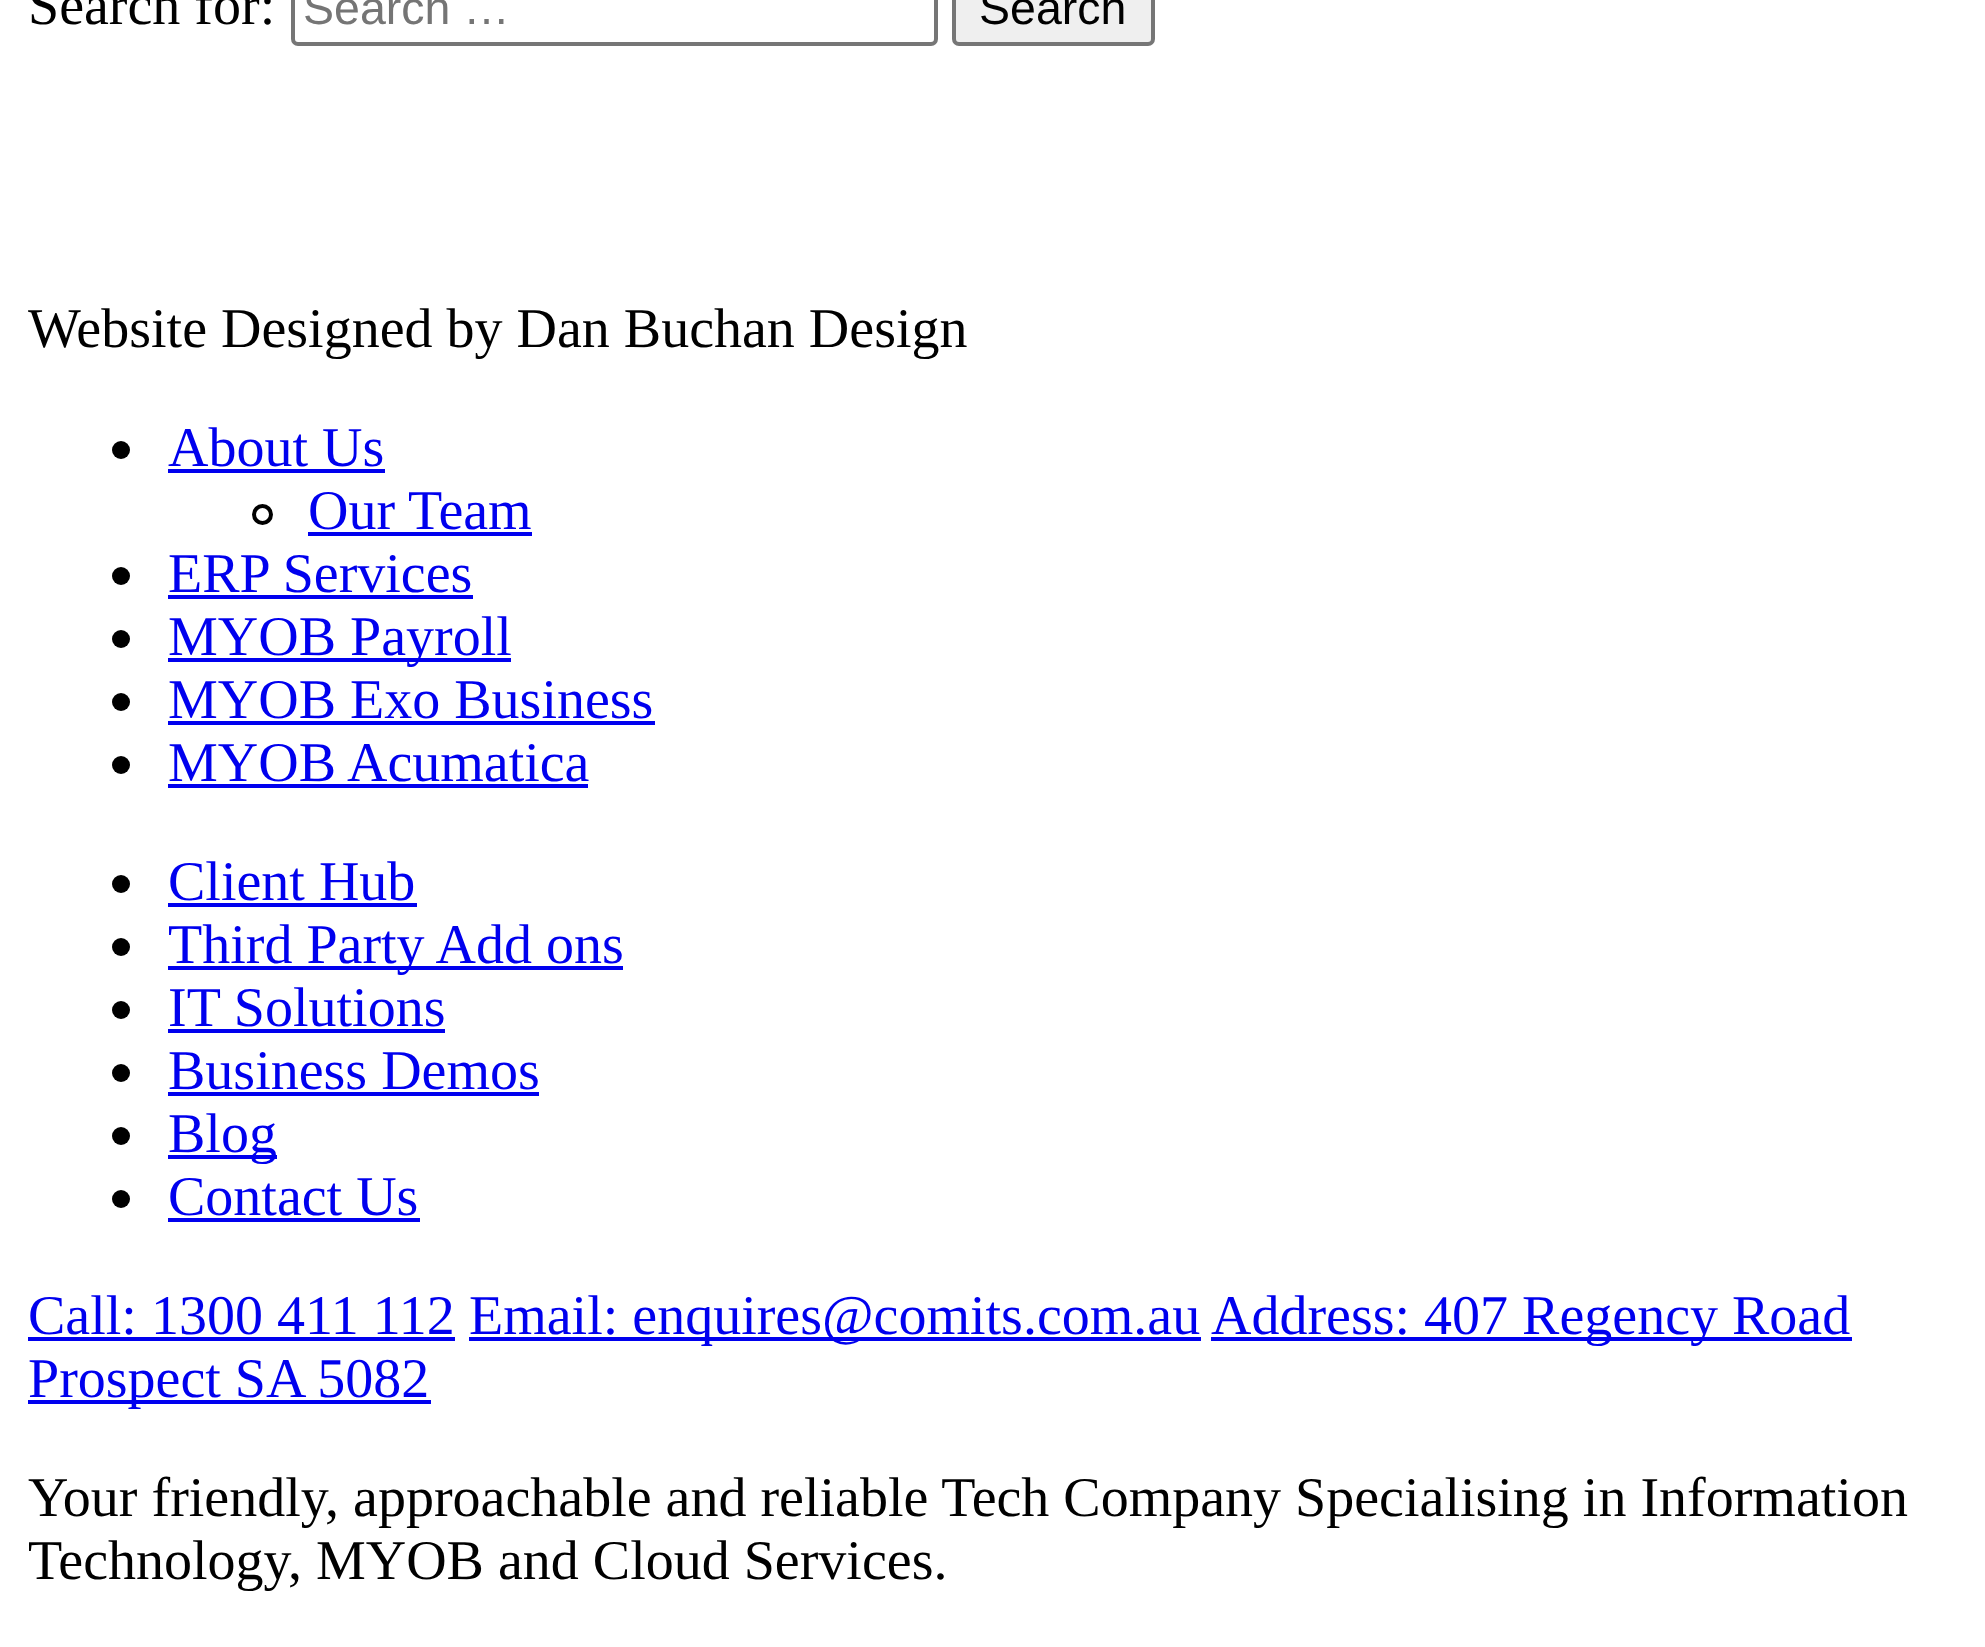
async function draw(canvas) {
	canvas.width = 1985;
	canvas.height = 1647;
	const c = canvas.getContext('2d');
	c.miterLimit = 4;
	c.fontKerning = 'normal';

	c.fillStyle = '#fff';
	c.fillRect(0, 0, 1985, 1647);
	c.font = '56px Liberation Serif';
	c.fillStyle = '#000';
	c.fillText('Search for:', 28, 24);
	c.beginPath();
	c.roundRect(293, -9, 643, 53, 5);
	c.strokeStyle = '#767676';
	c.lineWidth = 4;
	c.stroke();
	c.font = '46.5px Liberation Sans';
	c.fillStyle = '#757575';
	c.fillText('Search …', 303, 24);
	c.fillStyle = '#efefef';
	c.beginPath();
	c.roundRect(954, -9, 199, 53, 5);
	c.fill();
	c.stroke();
	c.fillStyle = '#000';
	c.fillText('Search', 979, 24);
	c.font = '56px Liberation Serif';
	c.fillText('Website Designed by Dan Buchan Design', 28, 347);
	c.beginPath();
	c.arc(121, 450, 9, 0, 2 * Math.PI);
	c.fill();
	c.fillStyle = '#00e';
	c.fillText('About Us', 168, 466);
	c.fillRect(168, 469, 217, 4);
	c.beginPath();
	c.arc(262.5, 514.5, 8.5, 0, 2 * Math.PI);
	c.strokeStyle = '#000';
	c.stroke();
	c.fillText('Our Team', 308, 529);
	c.fillRect(308, 532, 224, 4);
	c.fillStyle = '#000';
	c.beginPath();
	c.arc(121, 576, 9, 0, 2 * Math.PI);
	c.fill();
	c.fillStyle = '#00e';
	c.fillText('ERP Services', 168, 592);
	c.fillRect(168, 595, 305, 4);
	c.fillStyle = '#000';
	c.beginPath();
	c.arc(121, 639, 9, 0, 2 * Math.PI);
	c.fill();
	c.fillStyle = '#00e';
	c.fillRect(168, 658, 343, 4);
	c.fillText('MYOB Payroll', 168, 655);
	c.fillStyle = '#000';
	c.beginPath();
	c.arc(121, 702, 9, 0, 2 * Math.PI);
	c.fill();
	c.fillStyle = '#00e';
	c.fillText('MYOB Exo Business', 168, 718);
	c.fillRect(168, 721, 487, 4);
	c.fillStyle = '#000';
	c.beginPath();
	c.arc(121, 765, 9, 0, 2 * Math.PI);
	c.fill();
	c.fillStyle = '#00e';
	c.fillText('MYOB Acumatica', 168, 781);
	c.fillRect(168, 784, 420, 4);
	c.fillStyle = '#000';
	c.beginPath();
	c.arc(121, 884, 9, 0, 2 * Math.PI);
	c.fill();
	c.fillStyle = '#00e';
	c.fillText('Client Hub', 168, 900);
	c.fillRect(168, 903, 249, 4);
	c.fillStyle = '#000';
	c.beginPath();
	c.arc(121, 947, 9, 0, 2 * Math.PI);
	c.fill();
	c.fillStyle = '#00e';
	c.fillRect(168, 966, 455, 4);
	c.fillText('Third Party Add ons', 168, 963);
	c.fillStyle = '#000';
	c.beginPath();
	c.arc(121, 1010, 9, 0, 2 * Math.PI);
	c.fill();
	c.fillStyle = '#00e';
	c.fillText('IT Solutions', 168, 1026);
	c.fillRect(168, 1029, 277, 4);
	c.fillStyle = '#000';
	c.beginPath();
	c.arc(121, 1073, 9, 0, 2 * Math.PI);
	c.fill();
	c.fillStyle = '#00e';
	c.fillText('Business Demos', 168, 1089);
	c.fillRect(168, 1092, 371, 4);
	c.fillStyle = '#000';
	c.beginPath();
	c.arc(121, 1136, 9, 0, 2 * Math.PI);
	c.fill();
	c.fillStyle = '#00e';
	c.fillRect(168, 1155, 109, 4);
	c.fillText('Blog', 168, 1152);
	c.fillStyle = '#000';
	c.beginPath();
	c.arc(121, 1199, 9, 0, 2 * Math.PI);
	c.fill();
	c.fillStyle = '#00e';
	c.fillText('Contact Us', 168, 1215);
	c.fillRect(168, 1218, 252, 4);
	c.fillText('Call: 1300 411 112', 28, 1334);
	c.fillRect(28, 1337, 427, 4);
	c.fillRect(469, 1337, 732, 4);
	c.fillText('Email: enquires@comits.com.au', 469, 1334);
	c.fillRect(1211, 1337, 641, 4);
	c.fillText('Address: 407 Regency Road', 1211, 1334);
	c.fillRect(28, 1400, 403, 4);
	c.fillText('Prospect SA 5082', 28, 1397);
	c.fillStyle = '#000';
	c.fillText('Your friendly, approachable and reliable Tech Company Specialising in Information', 28, 1516);
	c.fillText('Technology, MYOB and Cloud Services.', 28, 1579);
}

draw(document.querySelector('canvas'));
